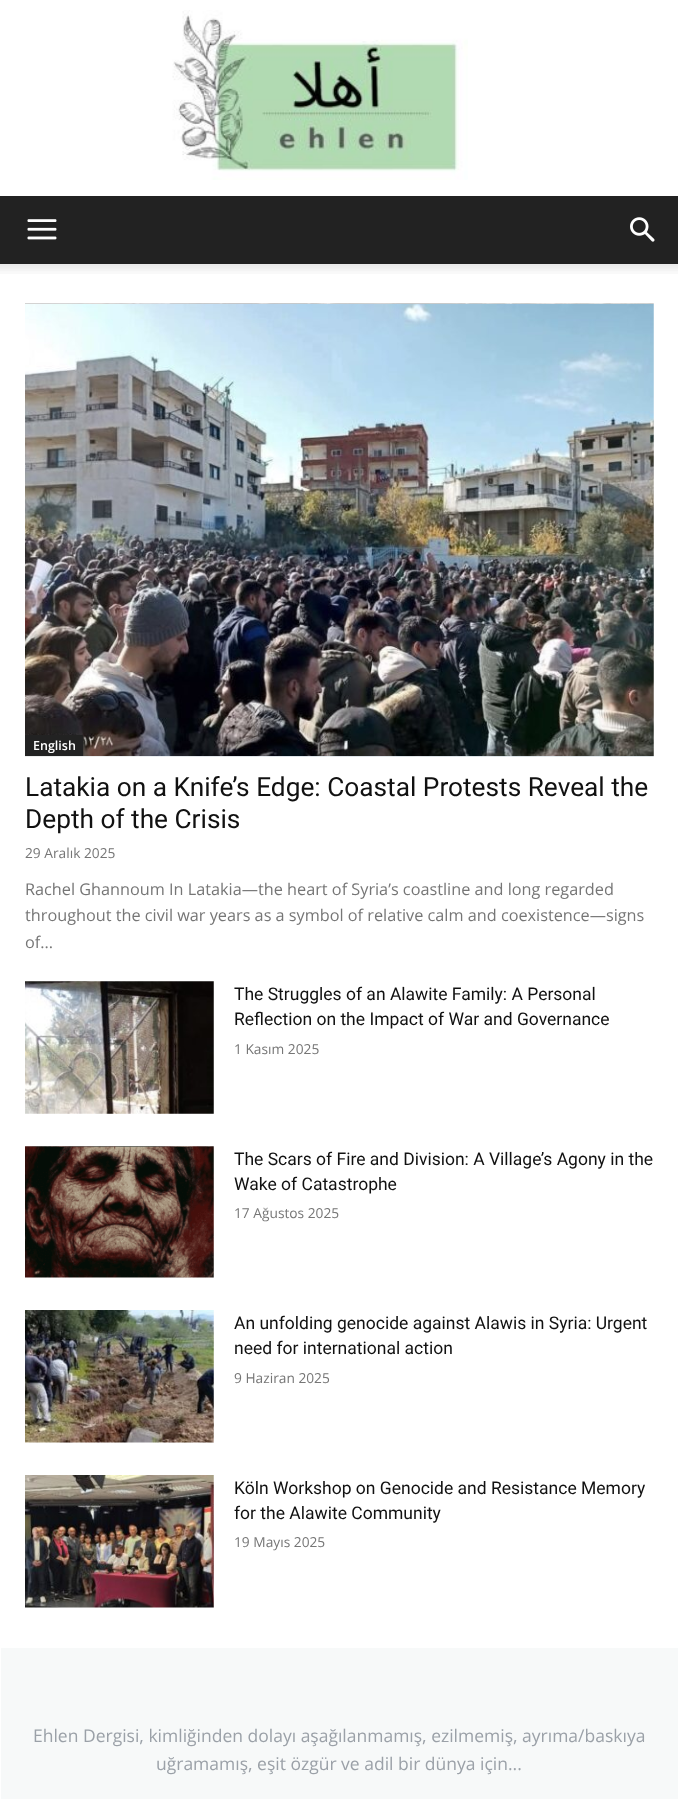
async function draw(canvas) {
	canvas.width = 678;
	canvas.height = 1799;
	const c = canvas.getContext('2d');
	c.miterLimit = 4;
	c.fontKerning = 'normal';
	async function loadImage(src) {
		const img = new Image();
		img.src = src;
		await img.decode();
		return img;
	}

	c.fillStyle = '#fff';
	c.fillRect(0, 0, 678, 1799);
	c.drawImage(await loadImage('img1.png'), 172, 10, 296, 170);
	c.fillStyle = '#222';
	c.fillRect(0, 196, 678, 68);
	c.drawImage(await loadImage('img2.png'), 27, 219, 30, 21);
	c.drawImage(await loadImage('img3.png'), 630, 217, 25, 25);
	c.drawImage(await loadImage('img4.png'), 0, 264, 678, 10);
	c.drawImage(await loadImage('img5.png'), 25, 303, 629, 454);
	c.fillRect(25, 735, 58, 21);
	c.font = '600 12.5px Open Sans';
	c.fillStyle = '#fff';
	c.fillText('English', 33, 750);
	c.font = '26.25px Roboto';
	c.fillStyle = '#111';
	c.fillText('Latakia on a Knife’s Edge: Coastal Protests Reveal the', 25, 796);
	c.fillText('Depth of the Crisis', 25, 828);
	c.font = '13.75px Open Sans';
	c.fillStyle = '#767676';
	c.fillText('29 Aralık 2025', 25, 858);
	c.font = '16.25px Open Sans';
	for (const [text, x, y] of [
		['Rachel Ghannoum In Latakia—the heart of Syria’s coastline and long regarded', 25, 895],
		['throughout the civil war years as a symbol of relative calm and coexistence—signs', 25, 921],
		['of...', 25, 948],
	]) {
		c.fillText(text, x, y);
	}
	c.drawImage(await loadImage('img6.png'), 25, 981, 189, 133);
	c.font = '17.5px Roboto';
	c.fillStyle = '#111';
	c.fillText('The Struggles of an Alawite Family: A Personal', 234, 1000);
	c.fillText('Reflection on the Impact of War and Governance', 234, 1025);
	c.font = '13.75px Open Sans';
	c.fillStyle = '#767676';
	c.fillText('1 Kasım 2025', 234, 1054);
	c.drawImage(await loadImage('img7.png'), 25, 1146, 189, 132);
	c.font = '17.5px Roboto';
	c.fillStyle = '#111';
	c.fillText('The Scars of Fire and Division: A Village’s Agony in the', 234, 1165);
	c.fillText('Wake of Catastrophe', 234, 1190);
	c.font = '13.75px Open Sans';
	c.fillStyle = '#767676';
	c.fillText('17 Ağustos 2025', 234, 1218);
	c.drawImage(await loadImage('img8.png'), 25, 1310, 189, 133);
	c.font = '17.5px Roboto';
	c.fillStyle = '#111';
	c.fillText('An unfolding genocide against Alawis in Syria: Urgent', 234, 1329);
	c.fillText('need for international action', 234, 1354);
	c.font = '13.75px Open Sans';
	c.fillStyle = '#767676';
	c.fillText('9 Haziran 2025', 234, 1383);
	c.drawImage(await loadImage('img9.png'), 25, 1475, 189, 133);
	c.font = '17.5px Roboto';
	c.fillStyle = '#111';
	c.fillText('Köln Workshop on Genocide and Resistance Memory', 234, 1494);
	c.fillText('for the Alawite Community', 234, 1519);
	c.font = '13.75px Open Sans';
	c.fillStyle = '#767676';
	c.fillText('19 Mayıs 2025', 234, 1547);
	c.fillStyle = '#f7f9f9';
	c.fillRect(1, 1648, 677, 151);
	c.font = '17.5px Open Sans';
	c.fillStyle = '#9ba1a8';
	c.fillText('Ehlen Dergisi, kimliğinden dolayı aşağılanmamış, ezilmemiş, ayrıma/baskıya', 33, 1742);
	c.fillText('uğramamış, eşit özgür ve adil bir dünya için...', 156, 1770);
}

draw(document.querySelector('canvas'));
